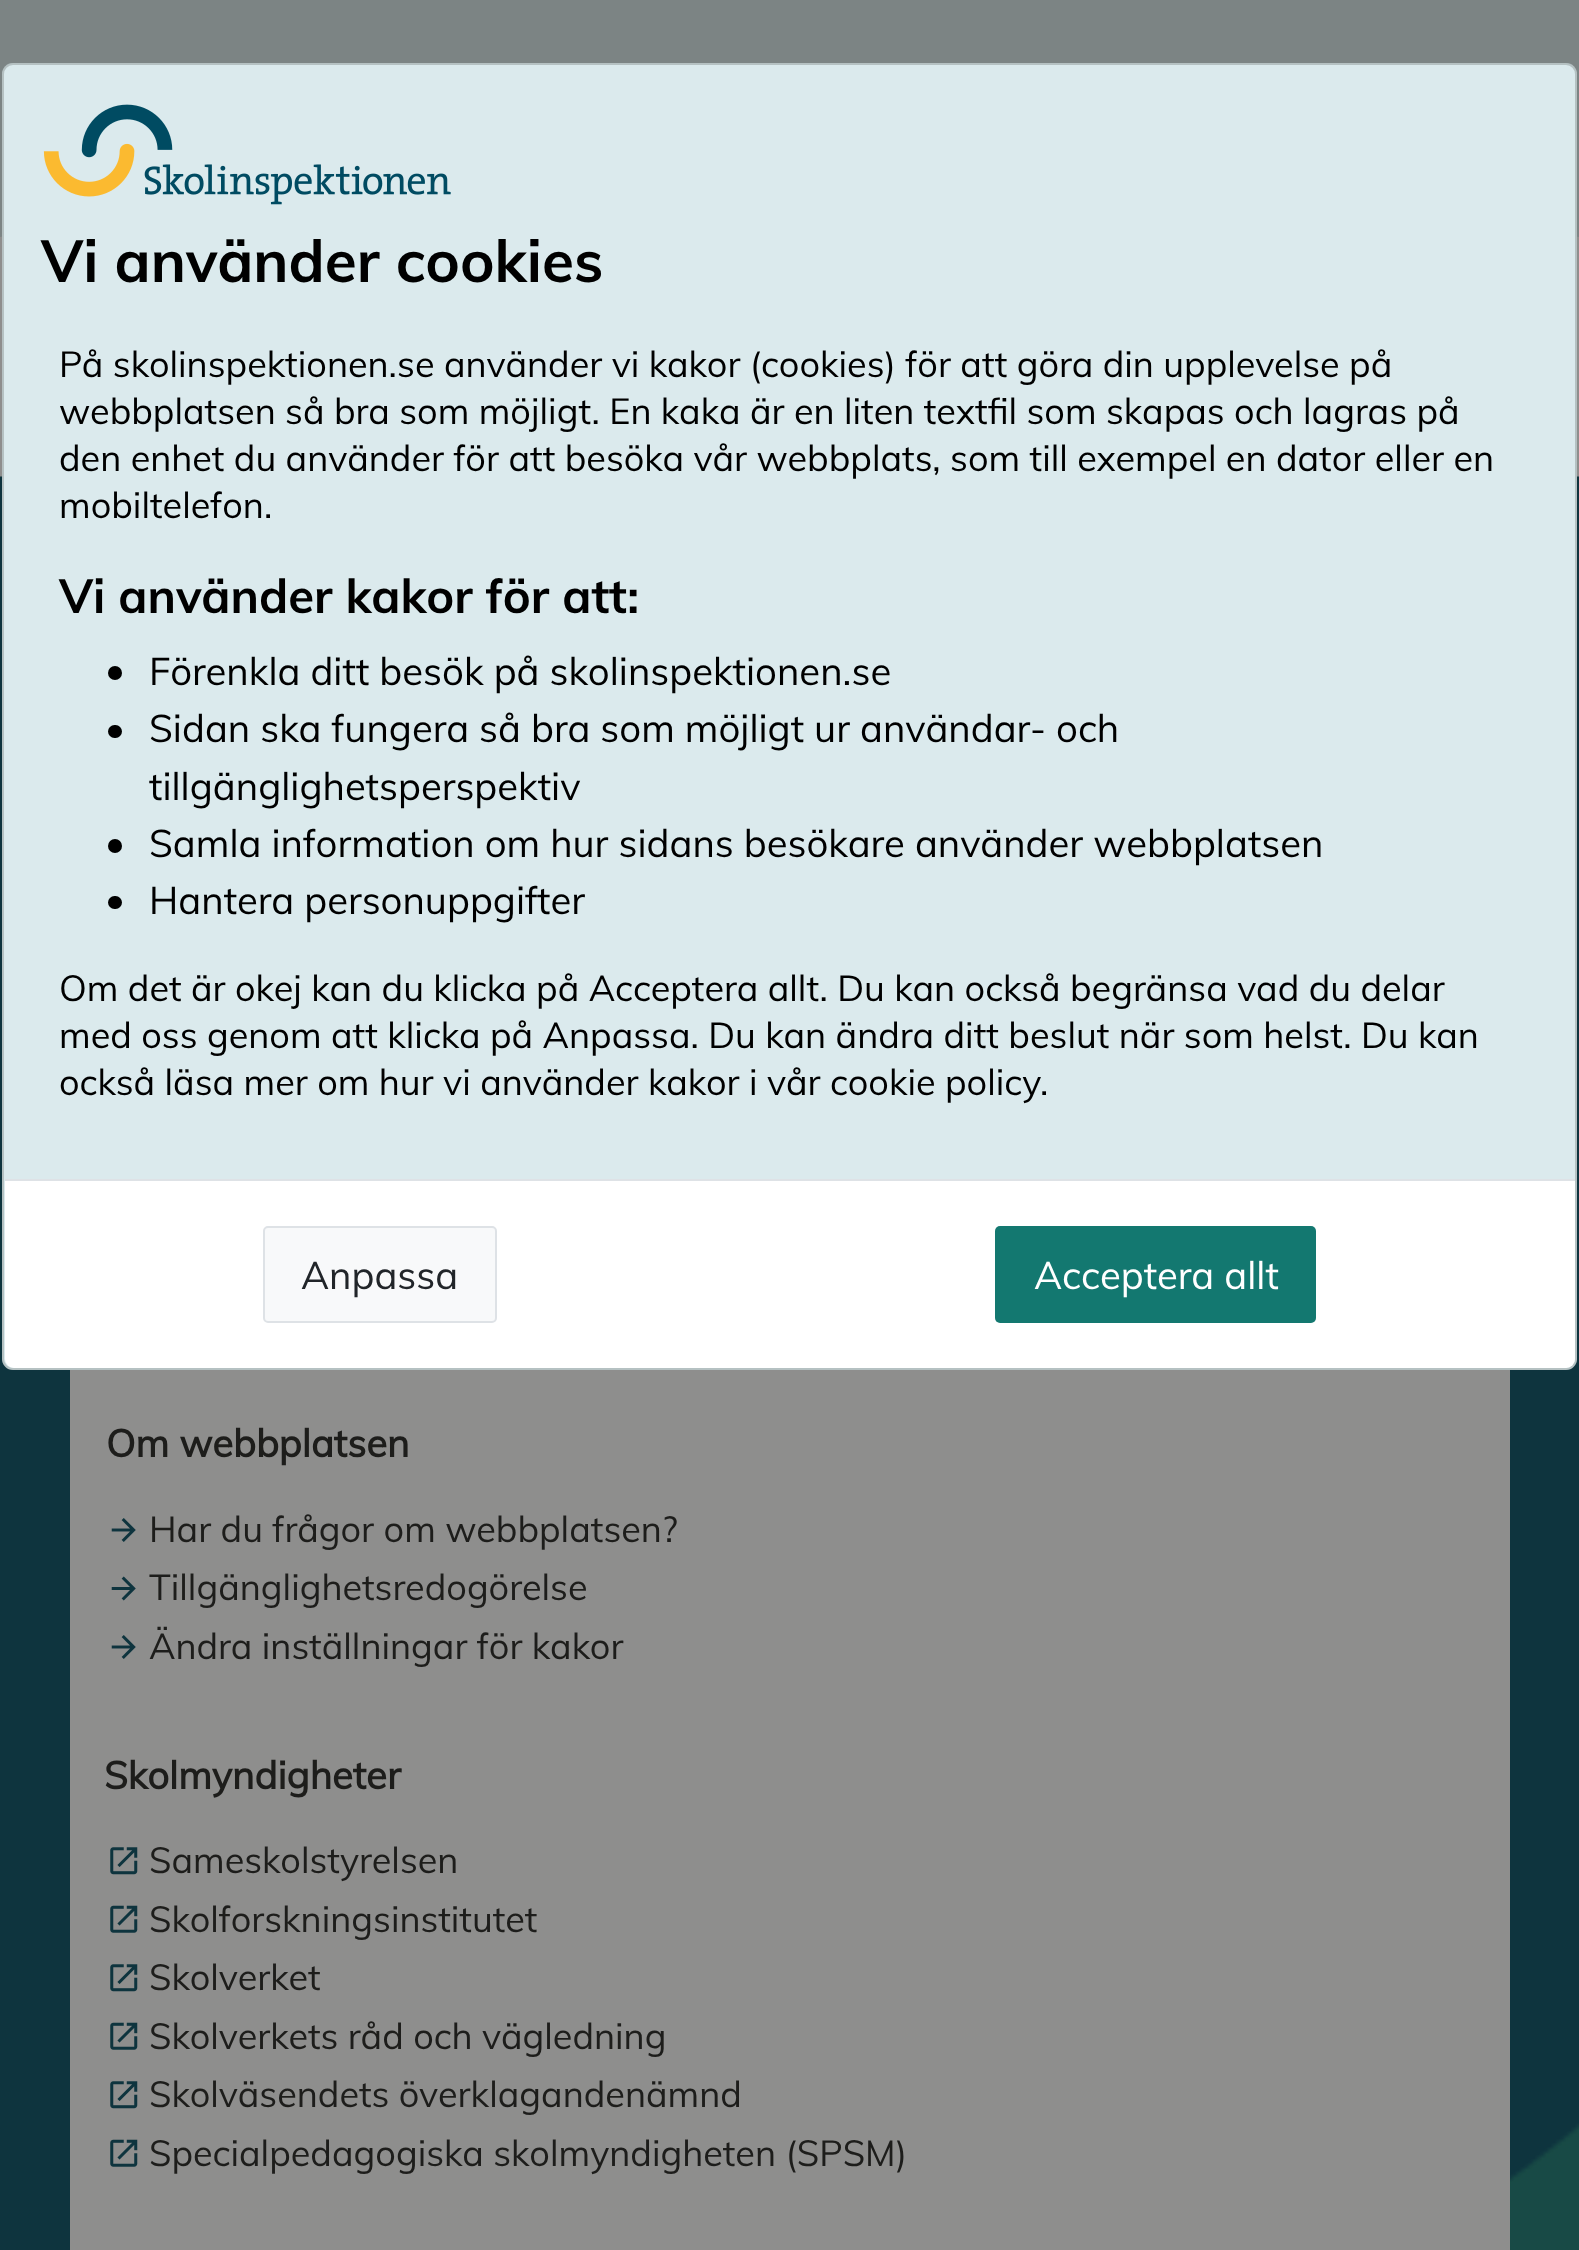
async function draw(canvas) {
	canvas.width = 1579;
	canvas.height = 2250;
	const c = canvas.getContext('2d');
	c.miterLimit = 4;
	c.fontKerning = 'normal';
	async function loadImage(src) {
		const img = new Image();
		img.src = src;
		await img.decode();
		return img;
	}

	c.fillStyle = '#8e8e8d';
	c.fillRect(0, 0, 1579, 2250);
	c.fillStyle = '#7c8484';
	c.fillRect(0, 0, 1579, 238);
	c.save();
	c.beginPath();
	c.rect(0, 52, 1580, 225);
	c.clip();
	c.fillStyle = '#8e8e8d';
	c.beginPath();
	c.moveTo(790, 187);
	c.bezierCurveTo(1313, 187, 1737, 237, 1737, 299);
	c.lineTo(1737, 412);
	c.lineTo(-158, 412);
	c.lineTo(-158, 299);
	c.bezierCurveTo(-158, 237, 267, 187, 790, 187);
	c.closePath();
	c.fill();
	c.restore();
	c.drawImage(await loadImage('img2.png'), 0, 476, 1579, 1774);
	c.fillStyle = '#dbeaed';
	c.beginPath();
	c.roundRect(2, 63, 1575, 1307, 11);
	c.fill();
	c.beginPath();
	c.roundRect(3, 64, 1573, 1305, 10);
	c.strokeStyle = '#1d1d1b33';
	c.lineWidth = 2;
	c.stroke();
	c.drawImage(await loadImage('img1.png'), 43, 104, 408, 101);
	c.font = 'bold 58.5px "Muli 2"';
	c.fillStyle = '#000';
	c.fillText('Vi använder cookies', 41, 282);
	c.font = '36px Muli';
	for (const [text, x, y] of [
		['På skolinspektionen.se använder vi kakor (cookies) för att göra din upplevelse på', 59, 377],
		['webbplatsen så bra som möjligt. En kaka är en liten textfil som skapas och lagras på', 59, 424],
		['den enhet du använder för att besöka vår webbplats, som till exempel en dator eller en', 59, 471],
		['mobiltelefon.', 59, 518],
	]) {
		c.fillText(text, x, y);
	}
	c.font = 'bold 47.25px "Muli 2"';
	c.fillText('Vi använder kakor för att:', 59, 613);
	c.beginPath();
	c.arc(115, 673, 7, 0, 2 * Math.PI);
	c.fill();
	c.font = '38.25px Muli';
	c.fillText('Förenkla ditt besök på skolinspektionen.se', 149, 685);
	c.beginPath();
	c.roundRect(108, 725, 14, 13, 6.5);
	c.fill();
	c.fillText('Sidan ska fungera så bra som möjligt ur användar- och', 149, 742);
	c.fillText('tillgänglighetsperspektiv', 149, 800);
	c.beginPath();
	c.arc(115, 846, 7, 0, 2 * Math.PI);
	c.fill();
	c.fillText('Samla information om hur sidans besökare använder webbplatsen', 149, 857);
	c.beginPath();
	c.roundRect(108, 896, 14, 13, 6.5);
	c.fill();
	c.fillText('Hantera personuppgifter', 149, 914);
	c.font = '36px Muli';
	for (const [text, x, y] of [
		['Om det är okej kan du klicka på Acceptera allt. Du kan också begränsa vad du delar', 59, 1001],
		['med oss genom att klicka på Anpassa. Du kan ändra ditt beslut när som helst. Du kan', 59, 1048],
		['också läsa mer om hur vi använder kakor i vår cookie policy.', 59, 1095],
	]) {
		c.fillText(text, x, y);
	}
	c.fillStyle = '#fff';
	c.beginPath();
	c.roundRect(5, 1179, 1570, 189, [0, 0, 9, 9]);
	c.fill();
	c.fillStyle = '#dee2e6';
	c.fillRect(5, 1179, 1570, 2);
	c.fillStyle = '#f8f9fa';
	c.beginPath();
	c.roundRect(264, 1227, 232, 95, 4);
	c.fill();
	c.strokeStyle = '#dee2e6';
	c.stroke();
	c.font = '38.25px Muli';
	c.fillStyle = '#212529';
	c.fillText('Anpassa', 301, 1289);
	c.fillStyle = '#137870';
	c.beginPath();
	c.roundRect(995, 1226, 321, 97, 5);
	c.fill();
	c.fillStyle = '#fff';
	c.fillText('Acceptera allt', 1034, 1289);
	c.fillStyle = '#8e8e8d';
	c.fillRect(70, 1370, 1440, 880);
	c.font = 'bold 38.25px Muli';
	c.fillStyle = '#1d1d1b';
	c.fillText('Om webbplatsen', 106, 1457);
	c.drawImage(await loadImage('img3.png'), 111, 1518, 25, 24);
	c.font = '36px Muli';
	c.fillText('Har du frågor om webbplatsen?', 149, 1542);
	c.drawImage(await loadImage('img4.png'), 111, 1576, 25, 25);
	c.fillText('Tillgänglighetsredogörelse', 149, 1600);
	c.drawImage(await loadImage('img3.png'), 111, 1635, 25, 24);
	c.fillText('Ändra inställningar för kakor', 149, 1659);
	c.font = 'bold 38.25px Muli';
	c.fillText('Skolmyndigheter', 104, 1789);
	c.drawImage(await loadImage('img5.png'), 110, 1847, 28, 28);
	c.font = '36px Muli';
	c.fillText('Sameskolstyrelsen', 149, 1873);
	c.drawImage(await loadImage('img6.png'), 110, 1905, 28, 28);
	c.fillText('Skolforskningsinstitutet', 149, 1932);
	c.drawImage(await loadImage('img5.png'), 110, 1964, 28, 28);
	c.fillText('Skolverket', 149, 1990);
	c.drawImage(await loadImage('img6.png'), 110, 2022, 28, 28);
	c.fillText('Skolverkets råd och vägledning', 149, 2049);
	c.drawImage(await loadImage('img5.png'), 110, 2081, 28, 28);
	c.fillText('Skolväsendets överklagandenämnd', 149, 2107);
	c.drawImage(await loadImage('img6.png'), 110, 2139, 28, 28);
	c.fillText('Specialpedagogiska skolmyndigheten (SPSM)', 149, 2166);
}

draw(document.querySelector('canvas'));
